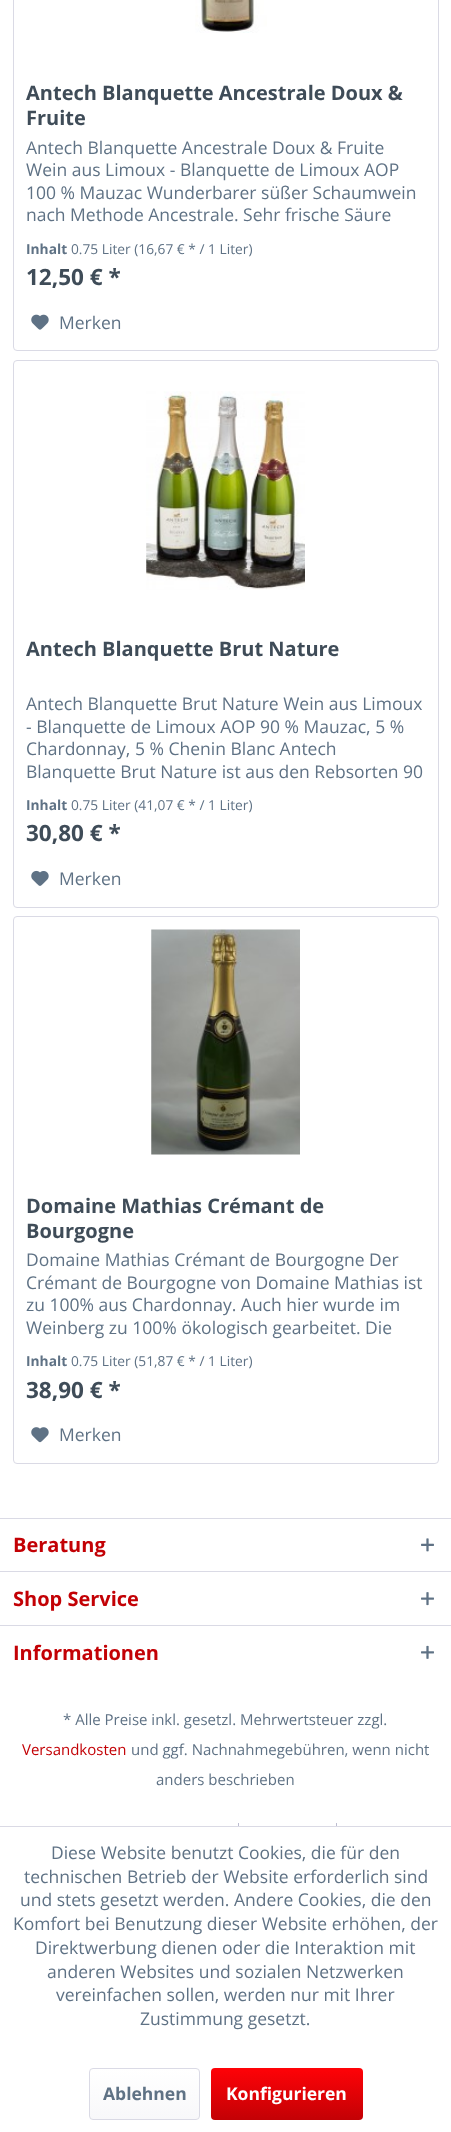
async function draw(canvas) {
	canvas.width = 451;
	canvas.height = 2132;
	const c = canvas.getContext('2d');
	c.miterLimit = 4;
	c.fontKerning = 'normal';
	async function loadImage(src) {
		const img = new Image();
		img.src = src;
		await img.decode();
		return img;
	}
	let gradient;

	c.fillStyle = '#fff';
	c.fillRect(0, 0, 451, 2132);
	c.beginPath();
	c.roundRect(13.5, -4.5, 425, 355, 3.5);
	c.strokeStyle = '#dadae5';
	c.stroke();
	c.drawImage(await loadImage('img1.png'), 195, 0, 72, 33);
	c.font = 'bold 20px Open Sans';
	c.fillStyle = '#3f4c58';
	c.fillText('Antech Blanquette Ancestrale Doux &', 26, 100);
	c.fillText('Fruite', 26, 125);
	c.font = '17.5px Open Sans';
	c.fillStyle = '#5f7285';
	for (const [text, x, y] of [
		['Antech Blanquette Ancestrale Doux & Fruite', 26, 154],
		['Wein aus Limoux - Blanquette de Limoux AOP', 26, 176],
		['100 % Mauzac Wunderbarer süßer Schaumwein', 26, 199],
		['nach Methode Ancestrale. Sehr frische Säure', 26, 221],
	]) {
		c.fillText(text, x, y);
	}
	c.font = 'bold 13.75px Open Sans';
	c.fillText('Inhalt', 26, 254);
	c.font = '13.75px Open Sans';
	c.fillText('0.75 Liter (16,67 € * / 1 Liter)', 71, 254);
	c.font = 'bold 22.5px Open Sans';
	c.fillStyle = '#3f4c58';
	c.fillText('12,50 € *', 26, 285);
	c.drawImage(await loadImage('img2.png'), 31, 314, 18, 16);
	c.font = '17.5px Open Sans';
	c.fillStyle = '#5f7285';
	c.fillText('Merken', 59, 329);
	c.beginPath();
	c.roundRect(13.5, 360.5, 425, 547, 3.5);
	c.stroke();
	c.drawImage(await loadImage('img3.png'), 146, 391, 159, 199);
	c.font = 'bold 20px Open Sans';
	c.fillStyle = '#3f4c58';
	c.fillText('Antech Blanquette Brut Nature', 26, 656);
	c.font = '17.5px Open Sans';
	c.fillStyle = '#5f7285';
	for (const [text, x, y] of [
		['Antech Blanquette Brut Nature Wein aus Limoux', 26, 710],
		['- Blanquette de Limoux AOP 90 % Mauzac, 5 %', 26, 733],
		['Chardonnay, 5 % Chenin Blanc Antech', 26, 755],
		['Blanquette Brut Nature ist aus den Rebsorten 90', 26, 778],
	]) {
		c.fillText(text, x, y);
	}
	c.font = 'bold 13.75px Open Sans';
	c.fillText('Inhalt', 26, 810);
	c.font = '13.75px Open Sans';
	c.fillText('0.75 Liter (41,07 € * / 1 Liter)', 71, 810);
	c.font = 'bold 22.5px Open Sans';
	c.fillStyle = '#3f4c58';
	c.fillText('30,80 € *', 26, 841);
	c.drawImage(await loadImage('img4.png'), 31, 870, 18, 16);
	c.font = '17.5px Open Sans';
	c.fillStyle = '#5f7285';
	c.fillText('Merken', 59, 885);
	c.beginPath();
	c.roundRect(13.5, 916.5, 425, 547, 3.5);
	c.stroke();
	c.drawImage(await loadImage('img5.png'), 151, 929, 149, 226);
	c.font = 'bold 20px Open Sans';
	c.fillStyle = '#3f4c58';
	c.fillText('Domaine Mathias Crémant de', 26, 1213);
	c.fillText('Bourgogne', 26, 1238);
	c.font = '17.5px Open Sans';
	c.fillStyle = '#5f7285';
	for (const [text, x, y] of [
		['Domaine Mathias Crémant de Bourgogne Der', 26, 1266],
		['Crémant de Bourgogne von Domaine Mathias ist', 26, 1289],
		['zu 100% aus Chardonnay. Auch hier wurde im', 26, 1311],
		['Weinberg zu 100% ökologisch gearbeitet. Die', 26, 1334],
	]) {
		c.fillText(text, x, y);
	}
	c.font = 'bold 13.75px Open Sans';
	c.fillText('Inhalt', 26, 1366);
	c.font = '13.75px Open Sans';
	c.fillText('0.75 Liter (51,87 € * / 1 Liter)', 71, 1366);
	c.font = 'bold 22.5px Open Sans';
	c.fillStyle = '#3f4c58';
	c.fillText('38,90 € *', 26, 1398);
	c.drawImage(await loadImage('img6.png'), 31, 1427, 18, 16);
	c.font = '17.5px Open Sans';
	c.fillStyle = '#5f7285';
	c.fillText('Merken', 59, 1441);
	c.fillStyle = '#dadae5';
	c.fillRect(0, 1518, 451, 1);
	c.font = 'bold 20px Open Sans';
	c.fillStyle = '#c30105';
	c.fillText('Beratung', 13, 1552);
	c.drawImage(await loadImage('img7.png'), 421, 1538, 13, 14);
	c.fillStyle = '#dadae5';
	c.fillRect(0, 1571, 451, 1);
	c.fillStyle = '#c30105';
	c.fillText('Shop Service', 13, 1606);
	c.drawImage(await loadImage('img8.png'), 421, 1592, 13, 14);
	c.fillStyle = '#dadae5';
	c.fillRect(0, 1625, 451, 1);
	c.fillStyle = '#c30105';
	c.fillText('Informationen', 13, 1660);
	c.drawImage(await loadImage('img9.png'), 421, 1645, 13, 14);
	c.font = '15px Open Sans';
	c.fillStyle = '#5f7285';
	c.fillText('* Alle Preise inkl. gesetzl. Mehrwertsteuer zzgl.', 63, 1725);
	c.fillStyle = '#c30105';
	c.fillText('Versandkosten', 22, 1755);
	c.fillStyle = '#5f7285';
	c.fillText('und ggf. Nachnahmegebühren, wenn nicht', 131, 1755);
	c.fillText('anders beschrieben', 156, 1785);
	for (const [x, y, w, h, color] of [
		[238, 1823, 1, 3, '#bcbcd0'],
		[336, 1823, 1, 3, '#bcbcd0'],
		[0, 1826, 451, 1, '#dadae5'],
	]) {
		c.fillStyle = color;
		c.fillRect(x, y, w, h);
	}
	c.font = '17.5px Open Sans';
	c.fillStyle = '#5f7285';
	for (const [text, x, y] of [
		['Diese Website benutzt Cookies, die für den', 51, 1859],
		['technischen Betrieb der Website erforderlich sind', 24, 1883],
		['und stets gesetzt werden. Andere Cookies, die den', 20, 1906],
		['Komfort bei Benutzung dieser Website erhöhen, der', 13, 1930],
		['Direktwerbung dienen oder die Interaktion mit', 35, 1954],
		['anderen Websites und sozialen Netzwerken', 47, 1978],
		['vereinfachen sollen, werden nur mit Ihrer', 56, 2001],
		['Zustimmung gesetzt.', 140, 2025],
	]) {
		c.fillText(text, x, y);
	}
	gradient = c.createLinearGradient(144, 2069, 144, 2119);
	gradient.addColorStop(0, '#fff');
	gradient.addColorStop(1, '#f8f8fa');
	c.fillStyle = gradient;
	c.beginPath();
	c.roundRect(90, 2069, 109, 50, 2.5);
	c.fill();
	c.beginPath();
	c.roundRect(89.5, 2068.5, 110, 51, 3.5);
	c.stroke();
	c.font = 'bold 17.5px Open Sans';
	c.fillStyle = '#5f7285';
	c.fillText('Ablehnen', 103, 2100);
	gradient = c.createLinearGradient(287, 2068, 287, 2120);
	gradient.addColorStop(0, '#ff0207');
	gradient.addColorStop(1, '#c30105');
	c.fillStyle = gradient;
	c.beginPath();
	c.roundRect(211, 2068, 152, 52, 4);
	c.fill();
	c.fillStyle = '#fff';
	c.fillText('Konfigurieren', 226, 2100);
}

draw(document.querySelector('canvas'));
